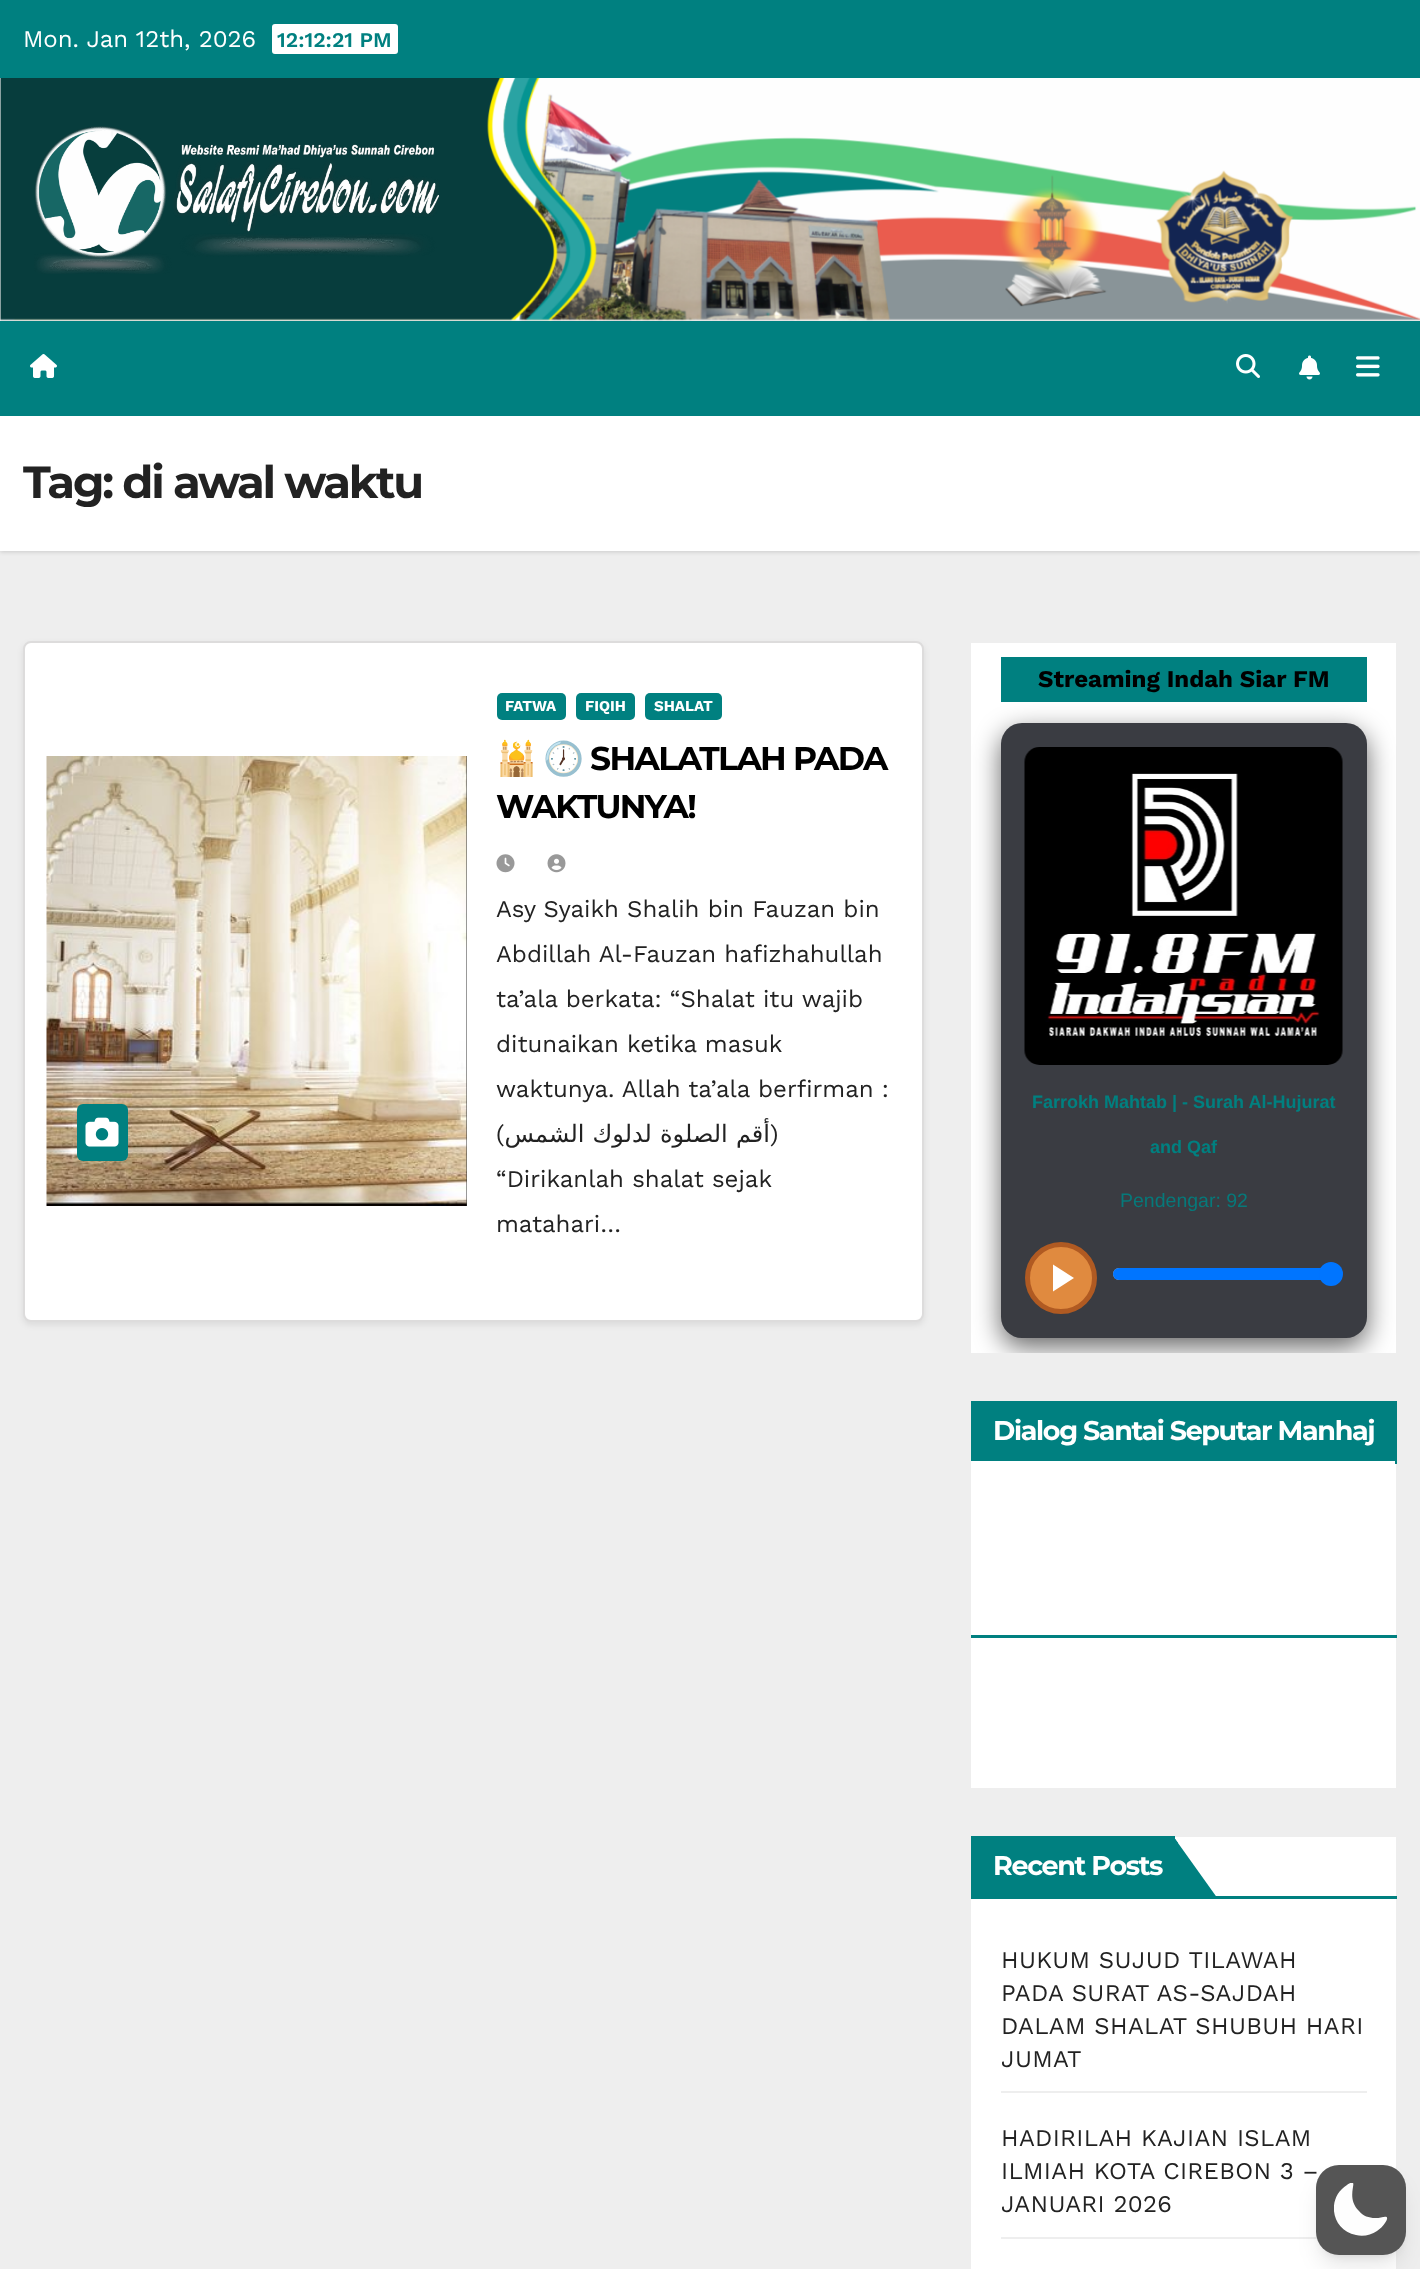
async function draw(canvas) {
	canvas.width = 1420;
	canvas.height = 2269;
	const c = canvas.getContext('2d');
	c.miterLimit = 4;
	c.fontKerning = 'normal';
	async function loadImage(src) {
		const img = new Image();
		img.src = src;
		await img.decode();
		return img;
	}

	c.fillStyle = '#eee';
	c.fillRect(0, 0, 1420, 2269);
	c.fillStyle = '#008080';
	c.fillRect(0, 0, 1420, 78);
	c.font = '24px Work Sans';
	c.fillStyle = '#fff';
	c.fillText('Mon. Jan 12th, 2026', 23, 47);
	c.beginPath();
	c.roundRect(272, 24, 126, 30, 3);
	c.fill();
	c.font = '600 21px Work Sans';
	c.fillStyle = '#008080';
	c.fillText('12:12:21 PM', 277, 47);
	c.drawImage(await loadImage('img1.png'), 0, 78, 1420, 243);
	c.drawImage(await loadImage('img2.png'), 34, 126, 406, 148);
	c.fillStyle = '#00000026';
	c.filter = 'blur(2px)';
	c.beginPath();
	c.rect(0, 417, 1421, 135);
	c.fill();
	c.filter = 'none';
	c.fillStyle = '#008080';
	c.fillRect(0, 321, 1420, 95);
	c.drawImage(await loadImage('img3.png'), 30, 354, 27, 24);
	c.drawImage(await loadImage('img4.png'), 1236, 354, 24, 24);
	c.drawImage(await loadImage('img5.png'), 1299, 355, 21, 25);
	c.drawImage(await loadImage('img6.png'), 1356, 356, 24, 21);
	c.fillStyle = '#fff';
	c.fillRect(0, 416, 1420, 135);
	c.letterSpacing = '-2.25px';
	c.font = 'bold 45px Montserrat';
	c.fillStyle = '#222';
	c.fillText('Tag: di awal waktu', 23, 498);
	c.fillStyle = '#00000014';
	c.filter = 'blur(3px)';
	c.beginPath();
	c.roundRect(23, 644, 901, 681, 8);
	c.fill();
	c.filter = 'none';
	c.fillStyle = '#fff';
	c.beginPath();
	c.roundRect(24, 642, 899, 679, 7);
	c.fill();
	c.strokeStyle = '#dddcdc';
	c.lineWidth = 2;
	c.stroke();
	c.fillStyle = '#333';
	c.fillRect(466, 756, 1, 450);
	c.drawImage(await loadImage('img7.png'), 46, 756, 421, 450);
	c.fillStyle = '#008080';
	c.beginPath();
	c.roundRect(77, 1104, 51, 57, 6);
	c.fill();
	c.drawImage(await loadImage('img8.png'), 85, 1117, 34, 30);
	c.beginPath();
	c.roundRect(497, 693, 69, 27, 5);
	c.fill();
	c.letterSpacing = '0px';
	c.font = 'bold 15px Work Sans';
	c.fillStyle = '#fff';
	c.fillText('FATWA', 505, 711);
	c.fillStyle = '#008080';
	c.beginPath();
	c.roundRect(576, 693, 59, 27, 5);
	c.fill();
	c.fillStyle = '#fff';
	c.fillText('FIQIH', 585, 711);
	c.fillStyle = '#008080';
	c.beginPath();
	c.roundRect(645, 693, 77, 27, 5);
	c.fill();
	c.fillStyle = '#fff';
	c.fillText('SHALAT', 654, 711);
	c.save();
	c.beginPath();
	c.rect(497, 735, 403, 96);
	c.clip();
	c.letterSpacing = '-1.6px';
	c.font = 'bold 33px Noto Color Emoji';
	c.fillStyle = '#000';
	c.fillText('🕌', 496, 770);
	c.restore();
	c.letterSpacing = '-1.6px';
	c.font = 'bold 33px Noto Color Emoji';
	c.fillStyle = '#000';
	c.fillText('🕖', 543, 770);
	c.font = 'bold 33px Montserrat';
	c.fillText('SHALATLAH PADA', 590, 770);
	c.fillText('WAKTUNYA!', 496, 818);
	c.drawImage(await loadImage('img9.png'), 496, 854, 19, 19);
	c.drawImage(await loadImage('img10.png'), 547, 854, 19, 19);
	c.letterSpacing = '0px';
	c.font = '24px Work Sans';
	c.fillStyle = '#222';
	for (const [text, x, y] of [
		['Asy Syaikh Shalih bin Fauzan bin', 496, 917],
		['Abdillah Al-Fauzan hafizhahullah', 496, 962],
		['ta’ala berkata: “Shalat itu wajib', 496, 1007],
		['ditunaikan ketika masuk', 496, 1052],
		['waktunya. Allah ta’ala berfirman :', 496, 1097],
		['(', 496, 1142],
	]) {
		c.fillText(text, x, y);
	}
	c.wordSpacing = '0.5px';
	c.direction = 'rtl';
	c.font = '24px DejaVu Sans';
	c.fillText('أقم الصلوة لدلوك الشمس', 770, 1142);
	c.wordSpacing = '0px';
	c.direction = 'ltr';
	c.font = '24px Work Sans';
	for (const [text, x, y] of [
		[')', 770, 1142],
		['“Dirikanlah shalat sejak', 496, 1187],
		['matahari…', 496, 1232],
	]) {
		c.fillText(text, x, y);
	}
	c.fillStyle = '#fff';
	c.fillRect(971, 643, 425, 710);
	c.fillStyle = '#008080';
	c.fillRect(1001, 657, 366, 45);
	c.save();
	c.beginPath();
	c.rect(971, 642, 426, 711);
	c.clip();
	c.fillStyle = '#00000099';
	c.filter = 'blur(13.5px)';
	c.beginPath();
	c.roundRect(1001, 732, 366, 615, 21);
	c.fill();
	c.filter = 'none';
	c.restore();
	c.font = 'bold 24px Work Sans';
	c.fillStyle = '#000';
	c.fillText('Streaming Indah Siar FM', 1038, 687);
	c.fillStyle = '#3a3c42';
	c.beginPath();
	c.roundRect(1001, 723, 366, 615, 21);
	c.fill();
	c.drawImage(await loadImage('img11.png'), 1024, 747, 319, 318);
	c.font = 'bold 18px Liberation Sans';
	c.fillStyle = '#008080';
	c.fillText('Farrokh Mahtab | - Surah Al-Hujurat', 1032, 1108);
	c.fillText('and Qaf', 1150, 1153);
	c.font = '19.5px Liberation Sans';
	c.fillStyle = '#06797a';
	c.fillText('Pendengar: 92', 1120, 1207);
	c.fillStyle = '#e08a3f';
	c.beginPath();
	c.arc(1061, 1278, 33.5, 0, 2 * Math.PI);
	c.fill();
	c.strokeStyle = '#b05a22';
	c.lineWidth = 5;
	c.stroke();
	c.fillStyle = '#fff';
	c.beginPath();
	c.moveTo(1053, 1291.5);
	c.lineTo(1053, 1264.5);
	c.lineTo(1074, 1278);
	c.closePath();
	c.fill();
	c.beginPath();
	c.roundRect(1114, 1269, 226, 10, 5);
	c.strokeStyle = '#b2b2b2';
	c.lineWidth = 2;
	c.stroke();
	c.fillStyle = '#0075ff';
	c.beginPath();
	c.roundRect(1113, 1268, 218, 12, [6, 0, 0, 6]);
	c.fill();
	c.beginPath();
	c.arc(1331, 1274, 12, 0, 2 * Math.PI);
	c.fill();
	for (const [x, y, w, h, color] of [
		[971, 1461, 425, 327, '#fff'],
		[971, 1635, 426, 3, '#008080'],
		[971, 1401, 426, 60, '#008080'],
	]) {
		c.fillStyle = color;
		c.fillRect(x, y, w, h);
	}
	c.letterSpacing = '-1.35px';
	c.font = 'bold 27px Montserrat';
	c.fillStyle = '#fff';
	c.fillText('Dialog Santai Seputar Manhaj', 993, 1440);
	c.save();
	c.beginPath();
	c.rect(971, 1401, 426, 387);
	c.clip();
	c.fillStyle = '#008080';
	c.beginPath();
	c.moveTo(1395, 1401);
	c.lineTo(1395, 1464);
	c.lineTo(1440, 1464);
	c.closePath();
	c.fill();
	c.restore();
	for (const [x, y, w, h, color] of [
		[971, 1837, 425, 432, '#fff'],
		[971, 1896, 426, 3, '#008080'],
		[971, 1836, 204, 60, '#008080'],
	]) {
		c.fillStyle = color;
		c.fillRect(x, y, w, h);
	}
	c.fillStyle = '#fff';
	c.fillText('Recent Posts', 993, 1875);
	c.fillStyle = '#008080';
	c.beginPath();
	c.moveTo(1173, 1836);
	c.lineTo(1173, 1899);
	c.lineTo(1218, 1899);
	c.closePath();
	c.fill();
	c.beginPath();
	c.moveTo(1173, 1836);
	c.lineTo(1173, 1899);
	c.lineTo(1178, 1894);
	c.lineTo(1178, 1843);
	c.closePath();
	c.fill();
	c.fillStyle = '#eee';
	c.fillRect(1001, 2091, 366, 2);
	c.letterSpacing = '0.3px';
	c.font = '24px Work Sans';
	c.fillStyle = '#222';
	for (const [text, x, y] of [
		['HUKUM SUJUD TILAWAH', 1001, 1968],
		['PADA SURAT AS-SAJDAH', 1001, 2001],
		['DALAM SHALAT SHUBUH HARI', 1001, 2034],
		['JUMAT', 1001, 2067],
	]) {
		c.fillText(text, x, y);
	}
	c.fillStyle = '#eee';
	c.fillRect(1001, 2237, 317, 2);
	c.fillStyle = '#222';
	for (const [text, x, y] of [
		['HADIRILAH KAJIAN ISLAM', 1001, 2146],
		['ILMIAH KOTA CIREBON 3 –', 1001, 2179],
		['JANUARI 2026', 1001, 2212],
	]) {
		c.fillText(text, x, y);
	}
	c.fillStyle = '#0000001a';
	c.filter = 'blur(4.5px)';
	c.beginPath();
	c.roundRect(1322, 2177, 78, 78, 17);
	c.fill();
	c.filter = 'none';
	c.filter = 'blur(11px)';
	c.beginPath();
	c.roundRect(1320, 2184, 81, 81, 18);
	c.fill();
	c.filter = 'none';
	c.fillStyle = '#555';
	c.beginPath();
	c.roundRect(1316, 2165, 90, 90, 23);
	c.fill();
	c.save();
	c.beginPath();
	c.rect(1334, 2183, 54, 54);
	c.clip();
	c.fillStyle = '#fefefe';
	c.beginPath();
	c.moveTo(1353, 2183);
	c.bezierCurveTo(1355, 2185, 1347, 2199, 1359, 2211);
	c.bezierCurveTo(1363, 2216, 1369, 2218, 1375, 2218);
	c.bezierCurveTo(1380, 2219, 1392, 2212, 1385, 2223);
	c.bezierCurveTo(1383, 2226, 1380, 2229, 1377, 2231);
	c.bezierCurveTo(1371, 2235, 1363, 2237, 1356, 2235);
	c.bezierCurveTo(1331, 2230, 1326, 2198, 1347, 2185);
	c.bezierCurveTo(1348, 2184, 1351, 2182, 1353, 2183);
	c.closePath();
	c.fill('evenodd');
	c.restore();
}

draw(document.querySelector('canvas'));
